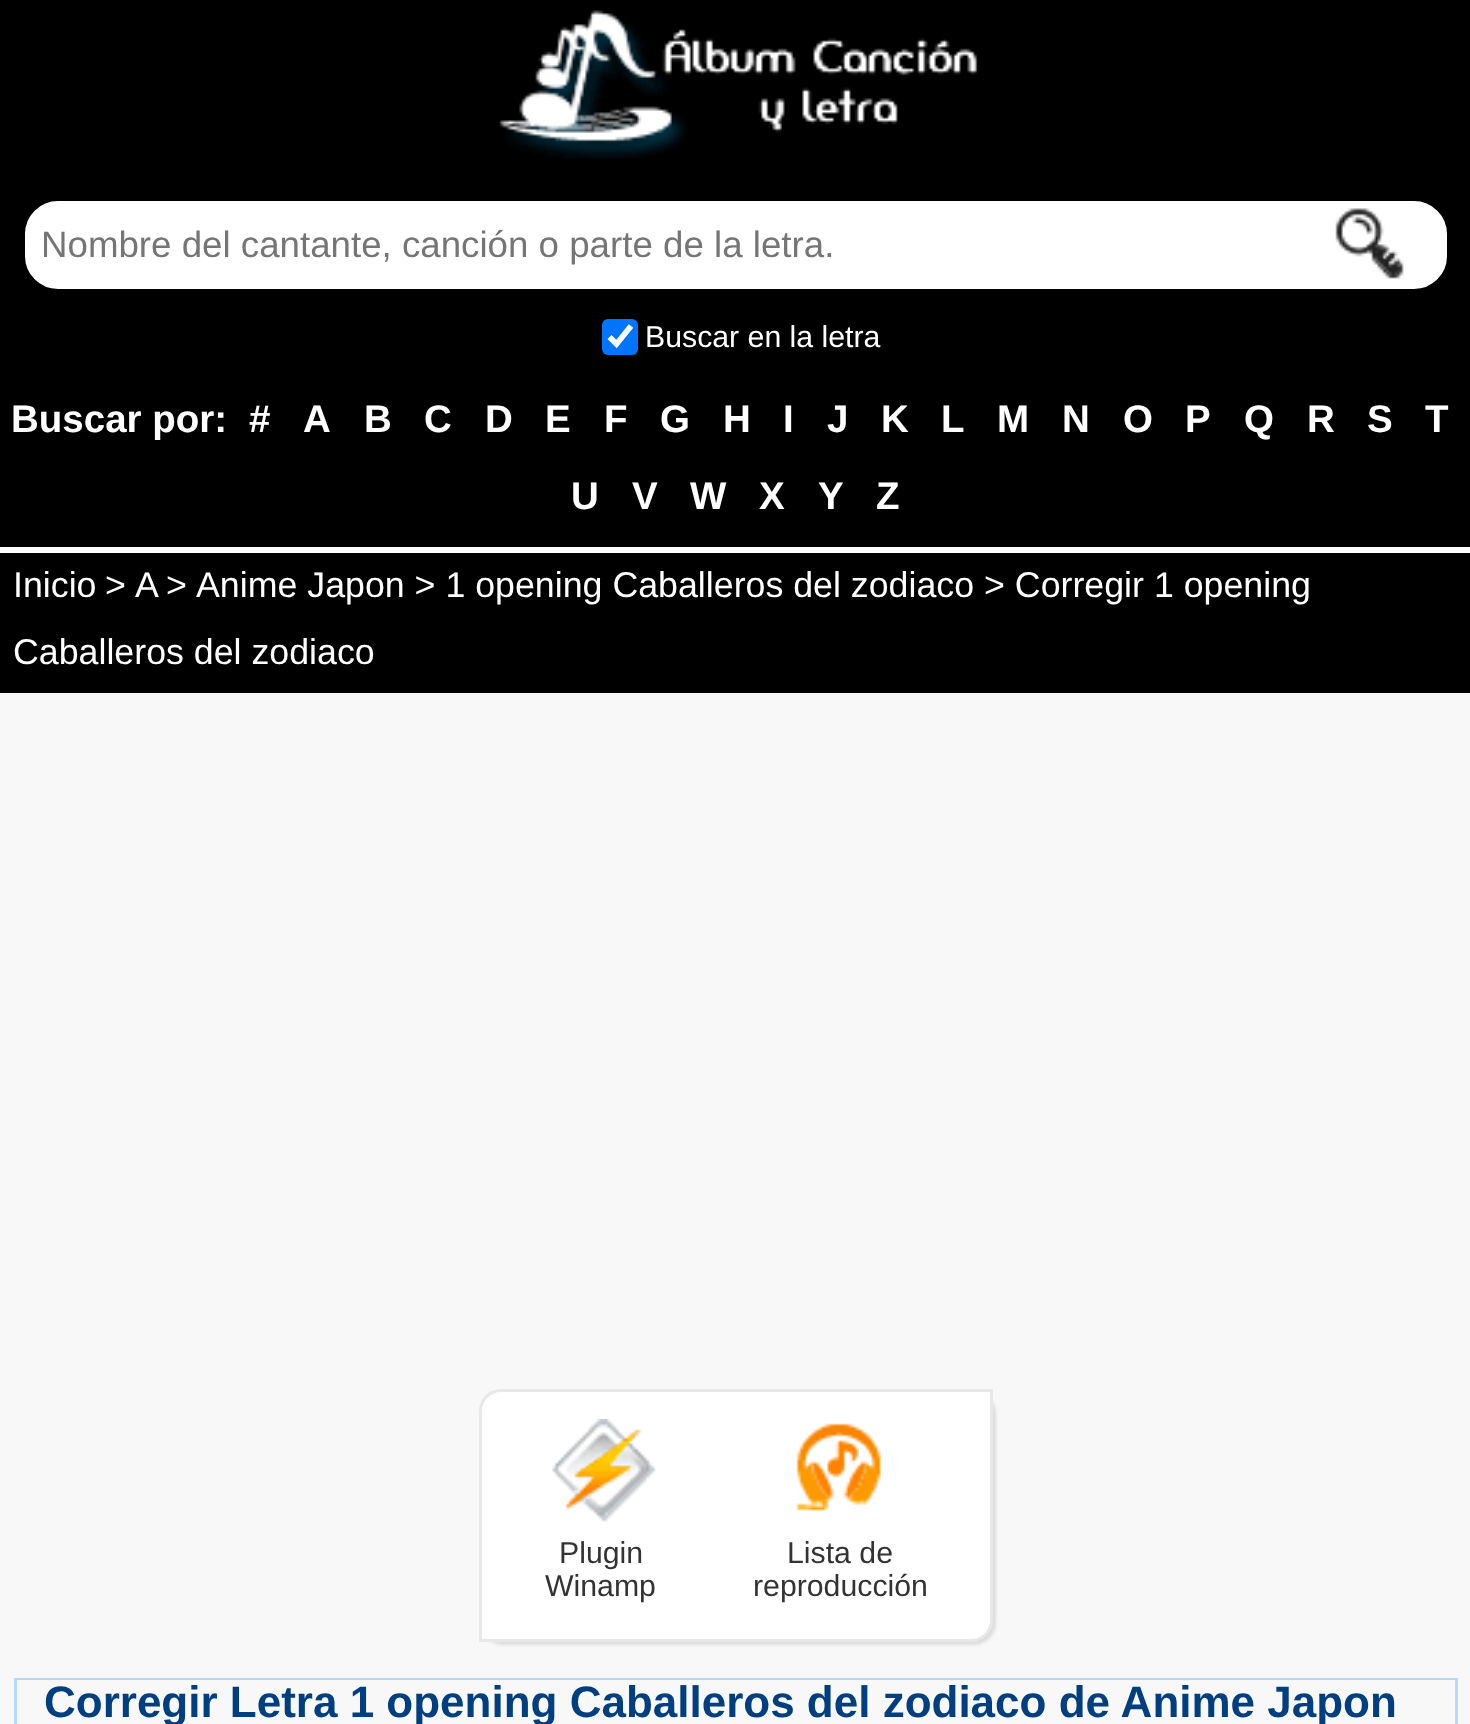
async function draw(canvas) {
	canvas.width = 1470;
	canvas.height = 1724;
	const c = canvas.getContext('2d');
	c.miterLimit = 4;
	c.fontKerning = 'normal';
	async function loadImage(src) {
		const img = new Image();
		img.src = src;
		await img.decode();
		return img;
	}

	c.fillStyle = '#f8f8f8';
	c.fillRect(0, 0, 1470, 1724);
	c.fillStyle = '#000';
	c.fillRect(0, 0, 1470, 547);
	c.fillStyle = '#fff';
	c.fillRect(0, 547, 1470, 6);
	c.drawImage(await loadImage('img1.png'), 499, 10, 479, 149);
	c.beginPath();
	c.roundRect(26.5, 202.5, 1419, 85, 31.5);
	c.fill();
	c.strokeStyle = '#fff';
	c.lineWidth = 3;
	c.stroke();
	c.font = '36.7px Liberation Sans';
	c.fillStyle = '#757575';
	c.fillText('Nombre del cantante, canción o parte de la letra.', 41, 257);
	c.drawImage(await loadImage('img2.png'), 1335, 208, 69, 71);
	c.fillStyle = '#0075ff';
	c.beginPath();
	c.roundRect(602, 319, 36, 36, 6);
	c.fill();
	c.beginPath();
	c.moveTo(609.5, 337);
	c.lineTo(616.5, 344);
	c.lineTo(631, 326);
	c.lineWidth = 5.7;
	c.stroke();
	c.font = '30.25px Liberation Sans';
	c.fillStyle = '#fff';
	c.fillText('Buscar en la letra', 645, 347);
	c.font = 'bold 38.5px Liberation Sans';
	for (const [text, x, y] of [
		['Buscar por:', 11, 432],
		['#', 249, 432],
		['A', 303, 432],
		['B', 364, 432],
		['C', 424, 432],
		['D', 485, 432],
		['E', 545, 432],
		['F', 604, 432],
		['G', 660, 432],
		['H', 723, 432],
		['I', 783, 432],
		['J', 827, 432],
		['K', 881, 432],
		['L', 941, 432],
		['M', 997, 432],
		['N', 1062, 432],
		['O', 1123, 432],
		['P', 1185, 432],
		['Q', 1244, 432],
		['R', 1307, 432],
		['S', 1367, 432],
		['T', 1425, 432],
		['U', 571, 509],
		['V', 632, 509],
		['W', 690, 509],
		['X', 759, 509],
		['Y', 818, 509],
		['Z', 876, 509],
	]) {
		c.fillText(text, x, y);
	}
	c.fillStyle = '#000';
	c.fillRect(0, 553, 1470, 140);
	c.font = '35.75px Liberation Sans';
	c.fillStyle = '#fff';
	for (const [text, x, y] of [
		['Inicio', 13, 597],
		['>', 105, 597],
		['A', 135, 597],
		['>', 166, 597],
		['Anime Japon > 1 opening Caballeros del zodiaco > Corregir 1 opening', 196, 597],
		['Caballeros del zodiaco', 13, 664],
	]) {
		c.fillText(text, x, y);
	}
	c.fillStyle = '#ddd';
	c.filter = 'blur(1.5px)';
	c.beginPath();
	c.roundRect(481, 1392, 515, 253, 22);
	c.fill();
	c.filter = 'none';
	c.fillStyle = '#fff';
	c.beginPath();
	c.roundRect(480.5, 1390.5, 511, 250, [20.5, 0, 20.5, 0]);
	c.fill();
	c.strokeStyle = '#e8e8e8';
	c.lineWidth = 3;
	c.stroke();
	c.drawImage(await loadImage('img3.png'), 552, 1419, 104, 103);
	c.font = '30.25px Liberation Sans';
	c.fillStyle = '#333';
	c.fillText('Plugin', 559, 1563);
	c.fillText('Winamp', 545, 1596);
	c.drawImage(await loadImage('img4.png'), 796, 1423, 85, 88);
	c.fillText('Lista de', 787, 1563);
	c.fillText('reproducción', 753, 1596);
	c.strokeStyle = '#b3d9ff';
	c.strokeRect(15.5, 1679.5, 1441, 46);
	c.fillStyle = '#f7f7f7';
	c.fillRect(17, 1680, 1438, 1);
	c.font = 'bold 44px Liberation Sans';
	c.fillStyle = '#003f7f';
	c.fillText('Corregir Letra 1 opening Caballeros del zodiaco de Anime Japon', 44, 1717);
}

draw(document.querySelector('canvas'));
